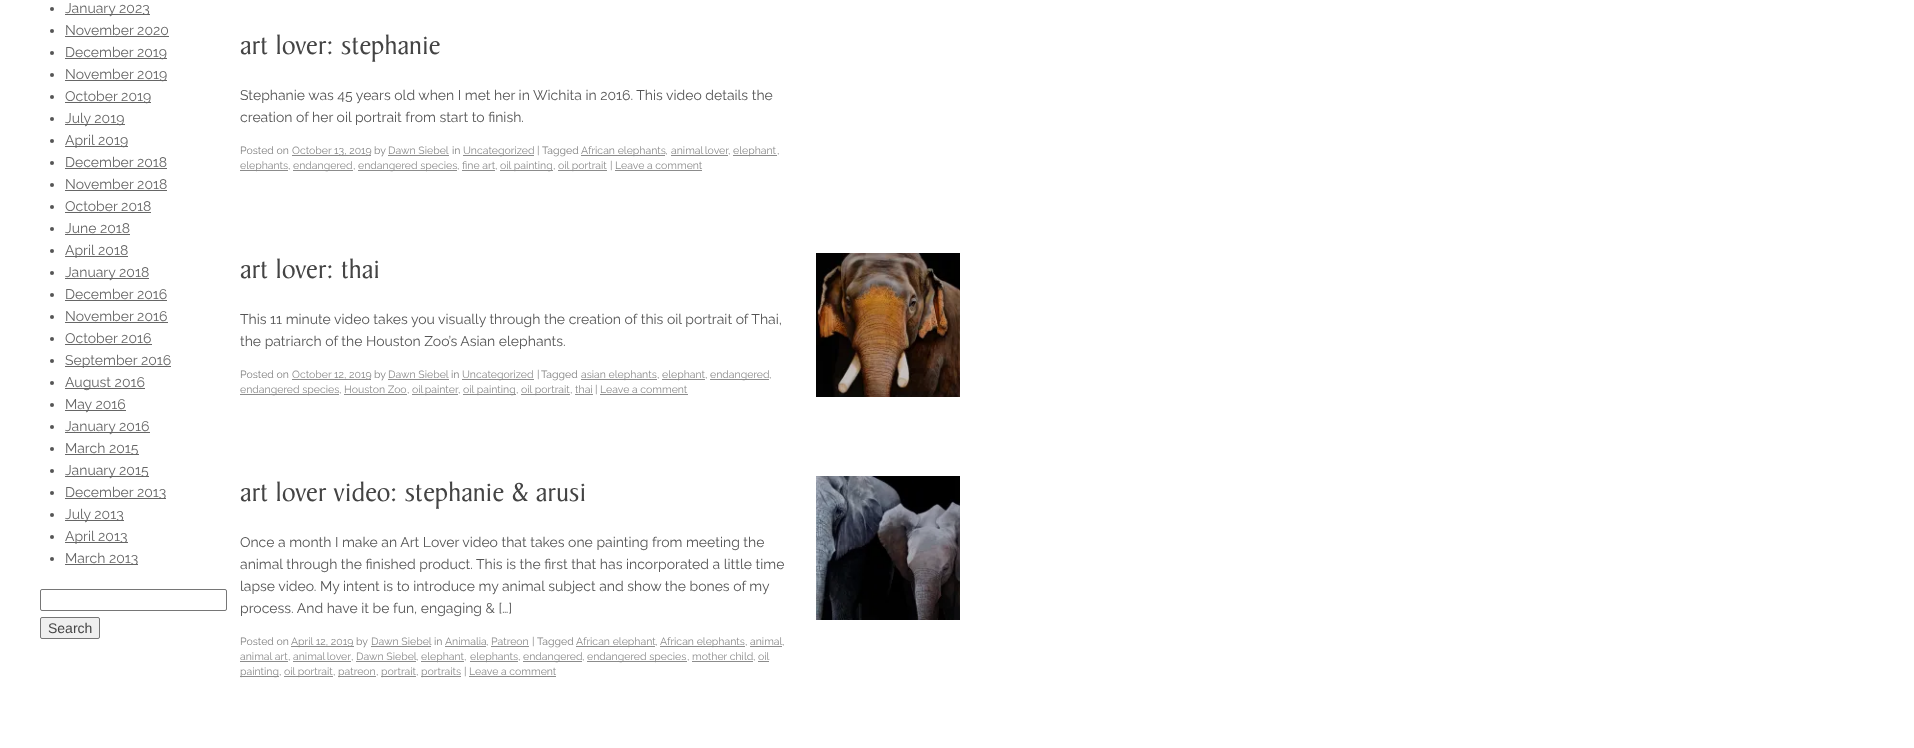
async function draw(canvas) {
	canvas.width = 1914;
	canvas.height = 748;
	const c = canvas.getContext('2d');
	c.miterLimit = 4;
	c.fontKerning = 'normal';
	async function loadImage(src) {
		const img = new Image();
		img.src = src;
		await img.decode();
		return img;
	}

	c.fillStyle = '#fff';
	c.fillRect(0, 0, 1914, 748);
	c.fillStyle = '#555';
	c.beginPath();
	c.arc(52, 9, 2, 0, 2 * Math.PI);
	c.fill();
	c.fillStyle = '#666';
	c.fillRect(65, 14, 85, 1);
	c.font = '14px Raleway';
	c.fillText('January 2023', 65, 13);
	c.fillStyle = '#555';
	c.beginPath();
	c.arc(52, 31, 2, 0, 2 * Math.PI);
	c.fill();
	c.fillStyle = '#666';
	c.fillText('November 2020', 65, 35);
	c.fillRect(65, 36, 104, 1);
	c.fillStyle = '#555';
	c.beginPath();
	c.arc(52, 53, 2, 0, 2 * Math.PI);
	c.fill();
	c.fillStyle = '#666';
	c.fillRect(65, 58, 102, 1);
	c.fillText('December 2019', 65, 57);
	c.fillStyle = '#555';
	c.beginPath();
	c.arc(52, 75, 2, 0, 2 * Math.PI);
	c.fill();
	c.fillStyle = '#666';
	c.fillRect(65, 80, 102, 1);
	c.fillText('November 2019', 65, 79);
	c.fillStyle = '#555';
	c.beginPath();
	c.arc(52, 97, 2, 0, 2 * Math.PI);
	c.fill();
	c.fillStyle = '#666';
	c.fillRect(65, 102, 86, 1);
	c.fillText('October 2019', 65, 101);
	c.fillStyle = '#555';
	c.beginPath();
	c.arc(52, 119, 2, 0, 2 * Math.PI);
	c.fill();
	c.fillStyle = '#666';
	c.fillRect(65, 124, 60, 1);
	c.fillText('July 2019', 65, 123);
	c.fillStyle = '#555';
	c.beginPath();
	c.arc(52, 141, 2, 0, 2 * Math.PI);
	c.fill();
	c.fillStyle = '#666';
	c.fillRect(65, 146, 63, 1);
	c.fillText('April 2019', 65, 145);
	c.fillStyle = '#555';
	c.beginPath();
	c.arc(52, 163, 2, 0, 2 * Math.PI);
	c.fill();
	c.fillStyle = '#666';
	c.fillText('December 2018', 65, 167);
	c.fillRect(65, 168, 102, 1);
	c.fillStyle = '#555';
	c.beginPath();
	c.arc(52, 185, 2, 0, 2 * Math.PI);
	c.fill();
	c.fillStyle = '#666';
	c.fillText('November 2018', 65, 189);
	c.fillRect(65, 190, 102, 1);
	c.fillStyle = '#555';
	c.beginPath();
	c.arc(52, 207, 2, 0, 2 * Math.PI);
	c.fill();
	c.fillStyle = '#666';
	c.fillText('October 2018', 65, 211);
	c.fillRect(65, 212, 86, 1);
	c.fillStyle = '#555';
	c.beginPath();
	c.arc(52, 229, 2, 0, 2 * Math.PI);
	c.fill();
	c.fillStyle = '#666';
	c.fillText('June 2018', 65, 233);
	c.fillRect(65, 234, 65, 1);
	c.fillStyle = '#555';
	c.beginPath();
	c.arc(52, 251, 2, 0, 2 * Math.PI);
	c.fill();
	c.fillStyle = '#666';
	c.fillRect(65, 256, 63, 1);
	c.fillText('April 2018', 65, 255);
	c.fillStyle = '#555';
	c.beginPath();
	c.arc(52, 273, 2, 0, 2 * Math.PI);
	c.fill();
	c.fillStyle = '#666';
	c.fillRect(65, 278, 84, 1);
	c.fillText('January 2018', 65, 277);
	c.fillStyle = '#555';
	c.beginPath();
	c.arc(52, 295, 2, 0, 2 * Math.PI);
	c.fill();
	c.fillStyle = '#666';
	c.fillText('December 2016', 65, 299);
	c.fillRect(65, 300, 102, 1);
	c.fillStyle = '#555';
	c.beginPath();
	c.arc(52, 317, 2, 0, 2 * Math.PI);
	c.fill();
	c.fillStyle = '#666';
	c.fillText('November 2016', 65, 321);
	c.fillRect(65, 322, 103, 1);
	c.fillStyle = '#555';
	c.beginPath();
	c.arc(52, 339, 2, 0, 2 * Math.PI);
	c.fill();
	c.fillStyle = '#666';
	c.fillText('October 2016', 65, 343);
	c.fillRect(65, 344, 87, 1);
	c.fillStyle = '#555';
	c.beginPath();
	c.arc(52, 361, 2, 0, 2 * Math.PI);
	c.fill();
	c.fillStyle = '#666';
	c.fillRect(65, 366, 106, 1);
	c.fillText('September 2016', 65, 365);
	c.fillStyle = '#555';
	c.beginPath();
	c.arc(52, 383, 2, 0, 2 * Math.PI);
	c.fill();
	c.fillStyle = '#666';
	c.fillRect(65, 388, 80, 1);
	c.fillText('August 2016', 65, 387);
	c.fillStyle = '#555';
	c.beginPath();
	c.arc(52, 405, 2, 0, 2 * Math.PI);
	c.fill();
	c.fillStyle = '#666';
	c.fillRect(65, 410, 61, 1);
	c.fillText('May 2016', 65, 409);
	c.fillStyle = '#555';
	c.beginPath();
	c.arc(52, 427, 2, 0, 2 * Math.PI);
	c.fill();
	c.fillStyle = '#666';
	c.fillRect(65, 432, 85, 1);
	c.fillText('January 2016', 65, 431);
	c.fillStyle = '#555';
	c.beginPath();
	c.arc(52, 449, 2, 0, 2 * Math.PI);
	c.fill();
	c.fillStyle = '#666';
	c.fillRect(65, 454, 74, 1);
	c.fillText('March 2015', 65, 453);
	c.fillStyle = '#555';
	c.beginPath();
	c.arc(52, 471, 2, 0, 2 * Math.PI);
	c.fill();
	c.fillStyle = '#666';
	c.fillRect(65, 476, 84, 1);
	c.fillText('January 2015', 65, 475);
	c.fillStyle = '#555';
	c.beginPath();
	c.arc(52, 493, 2, 0, 2 * Math.PI);
	c.fill();
	c.fillStyle = '#666';
	c.fillRect(65, 498, 101, 1);
	c.fillText('December 2013', 65, 497);
	c.fillStyle = '#555';
	c.beginPath();
	c.arc(52, 515, 2, 0, 2 * Math.PI);
	c.fill();
	c.fillStyle = '#666';
	c.fillRect(65, 520, 59, 1);
	c.fillText('July 2013', 65, 519);
	c.fillStyle = '#555';
	c.beginPath();
	c.arc(52, 537, 2, 0, 2 * Math.PI);
	c.fill();
	c.fillStyle = '#666';
	c.fillRect(65, 542, 63, 1);
	c.fillText('April 2013', 65, 541);
	c.fillStyle = '#555';
	c.beginPath();
	c.arc(52, 559, 2, 0, 2 * Math.PI);
	c.fill();
	c.fillStyle = '#666';
	c.fillRect(65, 564, 73, 1);
	c.fillText('March 2013', 65, 563);
	c.beginPath();
	c.roundRect(40.5, 589.5, 186, 21, 1.5);
	c.strokeStyle = '#767676';
	c.stroke();
	c.fillStyle = '#efefef';
	c.beginPath();
	c.roundRect(40.5, 617.5, 59, 21, 1.5);
	c.fill();
	c.stroke();
	c.font = '14px Liberation Sans';
	c.fillStyle = '#444';
	c.fillText('Search', 48, 633);
	c.font = '28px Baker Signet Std';
	c.fillText('art lover: stephanie', 240, 54);
	c.font = '14px Raleway';
	c.fillStyle = '#555';
	c.fillText('Stephanie was 45 years old when I met her in Wichita in 2016. This video details the', 240, 100);
	c.fillText('creation of her oil portrait from start to finish.', 240, 122);
	c.font = '10.5px Raleway';
	c.fillStyle = '#808080';
	c.fillText('Posted on', 240, 154);
	c.fillStyle = '#8c8c8c';
	c.fillRect(292, 155, 79, 1);
	c.fillText('October 13, 2019', 292, 154);
	c.fillStyle = '#808080';
	c.fillText('by', 374, 154);
	c.fillStyle = '#8c8c8c';
	c.fillText('Dawn Siebel', 388, 154);
	c.fillRect(388, 155, 61, 1);
	c.fillStyle = '#808080';
	c.fillText('in', 452, 154);
	c.fillStyle = '#8c8c8c';
	c.fillRect(463, 155, 71, 1);
	c.fillText('Uncategorized', 463, 154);
	c.fillStyle = '#808080';
	c.fillText('|', 537, 154);
	c.fillText('Tagged', 542, 154);
	c.fillStyle = '#8c8c8c';
	c.fillRect(581, 155, 84, 1);
	c.fillText('African elephants', 581, 154);
	c.fillStyle = '#808080';
	c.fillText(',', 665, 154);
	c.wordSpacing = '-1px';
	c.fillStyle = '#8c8c8c';
	c.fillText('animal lover', 671, 154);
	c.fillRect(671, 155, 57, 1);
	c.wordSpacing = '0px';
	c.fillStyle = '#808080';
	c.fillText(',', 728, 154);
	c.fillStyle = '#8c8c8c';
	c.fillRect(733, 155, 44, 1);
	c.fillText('elephant', 733, 154);
	c.fillStyle = '#808080';
	c.fillText(',', 777, 154);
	c.fillStyle = '#8c8c8c';
	c.fillRect(240, 170, 48, 1);
	c.fillText('elephants', 240, 169);
	c.fillStyle = '#808080';
	c.fillText(',', 288, 169);
	c.fillStyle = '#8c8c8c';
	c.fillRect(293, 170, 60, 1);
	c.fillText('endangered', 293, 169);
	c.fillStyle = '#808080';
	c.fillText(',', 353, 169);
	c.fillStyle = '#8c8c8c';
	c.fillRect(358, 170, 99, 1);
	c.fillText('endangered species', 358, 169);
	c.fillStyle = '#808080';
	c.fillText(',', 457, 169);
	c.fillStyle = '#8c8c8c';
	c.fillText('fine art', 462, 169);
	c.fillRect(462, 170, 33, 1);
	c.fillStyle = '#808080';
	c.fillText(',', 495, 169);
	c.fillStyle = '#8c8c8c';
	c.fillRect(500, 170, 53, 1);
	c.fillText('oil painting', 500, 169);
	c.fillStyle = '#808080';
	c.fillText(',', 553, 169);
	c.fillStyle = '#8c8c8c';
	c.fillRect(558, 170, 49, 1);
	c.fillText('oil portrait', 558, 169);
	c.fillStyle = '#808080';
	c.fillText('|', 610, 169);
	c.fillStyle = '#8c8c8c';
	c.fillText('Leave a comment', 615, 169);
	c.fillRect(615, 170, 87, 1);
	c.font = '28px Baker Signet Std';
	c.fillStyle = '#444';
	c.fillText('art lover: thai', 240, 278);
	c.font = '14px Raleway';
	c.fillStyle = '#555';
	c.fillText('This 11 minute video takes you visually through the creation of this oil portrait of Thai,', 240, 324);
	c.fillText('the patriarch of the Houston Zoo’s Asian elephants.', 240, 346);
	c.font = '10.5px Raleway';
	c.fillStyle = '#808080';
	c.fillText('Posted on', 240, 378);
	c.fillStyle = '#8c8c8c';
	c.fillRect(292, 379, 79, 1);
	c.fillText('October 12, 2019', 292, 378);
	c.fillStyle = '#808080';
	c.fillText('by', 374, 378);
	c.fillStyle = '#8c8c8c';
	c.fillText('Dawn Siebel', 388, 378);
	c.fillRect(388, 379, 61, 1);
	c.fillStyle = '#808080';
	c.fillText('in', 451, 378);
	c.fillStyle = '#8c8c8c';
	c.fillRect(462, 379, 72, 1);
	c.fillText('Uncategorized', 462, 378);
	c.fillStyle = '#808080';
	c.fillText('|', 537, 378);
	c.fillText('Tagged', 541, 378);
	c.fillStyle = '#8c8c8c';
	c.fillRect(581, 379, 76, 1);
	c.fillText('asian elephants', 581, 378);
	c.fillStyle = '#808080';
	c.fillText(',', 657, 378);
	c.fillStyle = '#8c8c8c';
	c.fillRect(662, 379, 43, 1);
	c.fillText('elephant', 662, 378);
	c.fillStyle = '#808080';
	c.fillText(',', 705, 378);
	c.fillStyle = '#8c8c8c';
	c.fillRect(710, 379, 59, 1);
	c.fillText('endangered', 710, 378);
	c.fillStyle = '#808080';
	c.fillText(',', 769, 378);
	c.fillStyle = '#8c8c8c';
	c.fillRect(240, 394, 99, 1);
	c.fillText('endangered species', 240, 393);
	c.fillStyle = '#808080';
	c.fillText(',', 339, 393);
	c.fillStyle = '#8c8c8c';
	c.fillText('Houston Zoo', 344, 393);
	c.fillRect(344, 394, 63, 1);
	c.fillStyle = '#808080';
	c.fillText(',', 407, 393);
	c.fillStyle = '#8c8c8c';
	c.fillRect(412, 394, 46, 1);
	c.wordSpacing = '-1px';
	c.fillText('oil painter', 412, 393);
	c.wordSpacing = '0px';
	c.fillStyle = '#808080';
	c.fillText(',', 458, 393);
	c.fillStyle = '#8c8c8c';
	c.fillRect(463, 394, 53, 1);
	c.fillText('oil painting', 463, 393);
	c.fillStyle = '#808080';
	c.fillText(',', 516, 393);
	c.fillStyle = '#8c8c8c';
	c.fillRect(521, 394, 49, 1);
	c.fillText('oil portrait', 521, 393);
	c.fillStyle = '#808080';
	c.fillText(',', 570, 393);
	c.fillStyle = '#8c8c8c';
	c.fillText('thai', 575, 393);
	c.fillRect(575, 394, 18, 1);
	c.fillStyle = '#808080';
	c.fillText('|', 595, 393);
	c.fillStyle = '#8c8c8c';
	c.fillText('Leave a comment', 600, 393);
	c.fillRect(600, 394, 88, 1);
	c.drawImage(await loadImage('img1.png'), 816, 253, 144, 144);
	c.font = '28px Baker Signet Std';
	c.fillStyle = '#444';
	c.fillText('art lover video: stephanie & arusi', 240, 501);
	c.font = '14px Raleway';
	c.fillStyle = '#555';
	for (const [text, x, y] of [
		['Once a month I make an Art Lover video that takes one painting from meeting the', 240, 547],
		['animal through the finished product. This is the first that has incorporated a little time', 240, 569],
		['lapse video. My intent is to introduce my animal subject and show the bones of my', 240, 591],
		['process. And have it be fun, engaging & […]', 240, 613],
	]) {
		c.fillText(text, x, y);
	}
	c.font = '10.5px Raleway';
	c.fillStyle = '#808080';
	c.fillText('Posted on', 240, 645);
	c.fillStyle = '#8c8c8c';
	c.fillRect(291, 646, 63, 1);
	c.fillText('April 12, 2019', 291, 645);
	c.fillStyle = '#808080';
	c.fillText('by', 356, 645);
	c.fillStyle = '#8c8c8c';
	c.fillText('Dawn Siebel', 371, 645);
	c.fillRect(371, 646, 60, 1);
	c.fillStyle = '#808080';
	c.fillText('in', 434, 645);
	c.fillStyle = '#8c8c8c';
	c.fillText('Animalia', 445, 645);
	c.fillStyle = '#808080';
	c.fillText(',', 486, 645);
	c.fillStyle = '#8c8c8c';
	c.fillRect(445, 646, 41, 1);
	c.fillRect(491, 646, 38, 1);
	c.fillText('Patreon', 491, 645);
	c.fillStyle = '#808080';
	c.fillText('|', 532, 645);
	c.fillText('Tagged', 537, 645);
	c.fillStyle = '#8c8c8c';
	c.fillRect(576, 646, 79, 1);
	c.fillText('African elephant', 576, 645);
	c.fillStyle = '#808080';
	c.fillText(',', 655, 645);
	c.fillStyle = '#8c8c8c';
	c.fillRect(660, 646, 85, 1);
	c.fillText('African elephants', 660, 645);
	c.fillStyle = '#808080';
	c.fillText(',', 745, 645);
	c.fillStyle = '#8c8c8c';
	c.fillText('animal', 750, 645);
	c.fillRect(750, 646, 32, 1);
	c.fillStyle = '#808080';
	c.fillText(',', 782, 645);
	c.fillStyle = '#8c8c8c';
	c.fillText('animal art', 240, 660);
	c.fillRect(240, 661, 48, 1);
	c.fillStyle = '#808080';
	c.fillText(',', 288, 660);
	c.wordSpacing = '-1px';
	c.fillStyle = '#8c8c8c';
	c.fillText('animal lover', 293, 660);
	c.fillRect(293, 661, 58, 1);
	c.wordSpacing = '0px';
	c.fillStyle = '#808080';
	c.fillText(',', 351, 660);
	c.fillStyle = '#8c8c8c';
	c.fillText('Dawn Siebel', 356, 660);
	c.fillRect(356, 661, 60, 1);
	c.fillStyle = '#808080';
	c.fillText(',', 416, 660);
	c.fillStyle = '#8c8c8c';
	c.fillRect(421, 661, 43, 1);
	c.fillText('elephant', 421, 660);
	c.fillStyle = '#808080';
	c.fillText(',', 464, 660);
	c.fillStyle = '#8c8c8c';
	c.fillRect(470, 661, 48, 1);
	c.fillText('elephants', 470, 660);
	c.fillStyle = '#808080';
	c.fillText(',', 518, 660);
	c.fillStyle = '#8c8c8c';
	c.fillRect(523, 661, 59, 1);
	c.fillText('endangered', 523, 660);
	c.fillStyle = '#808080';
	c.fillText(',', 582, 660);
	c.fillStyle = '#8c8c8c';
	c.fillRect(587, 661, 100, 1);
	c.fillText('endangered species', 587, 660);
	c.fillStyle = '#808080';
	c.fillText(',', 687, 660);
	c.fillStyle = '#8c8c8c';
	c.fillText('mother child', 692, 660);
	c.fillRect(692, 661, 61, 1);
	c.fillStyle = '#808080';
	c.fillText(',', 753, 660);
	c.fillStyle = '#8c8c8c';
	c.fillText('oil', 758, 660);
	c.fillRect(758, 661, 11, 1);
	c.fillRect(240, 676, 39, 1);
	c.fillText('painting', 240, 675);
	c.fillStyle = '#808080';
	c.fillText(',', 279, 675);
	c.fillStyle = '#8c8c8c';
	c.fillRect(284, 676, 49, 1);
	c.fillText('oil portrait', 284, 675);
	c.fillStyle = '#808080';
	c.fillText(',', 333, 675);
	c.fillStyle = '#8c8c8c';
	c.fillRect(338, 676, 38, 1);
	c.fillText('patreon', 338, 675);
	c.fillStyle = '#808080';
	c.fillText(',', 376, 675);
	c.fillStyle = '#8c8c8c';
	c.fillRect(381, 676, 35, 1);
	c.fillText('portrait', 381, 675);
	c.fillStyle = '#808080';
	c.fillText(',', 416, 675);
	c.fillStyle = '#8c8c8c';
	c.fillRect(421, 676, 40, 1);
	c.fillText('portraits', 421, 675);
	c.fillStyle = '#808080';
	c.fillText('|', 464, 675);
	c.fillStyle = '#8c8c8c';
	c.fillText('Leave a comment', 469, 675);
	c.fillRect(469, 676, 87, 1);
	c.drawImage(await loadImage('img2.png'), 816, 476, 144, 144);
}

draw(document.querySelector('canvas'));
